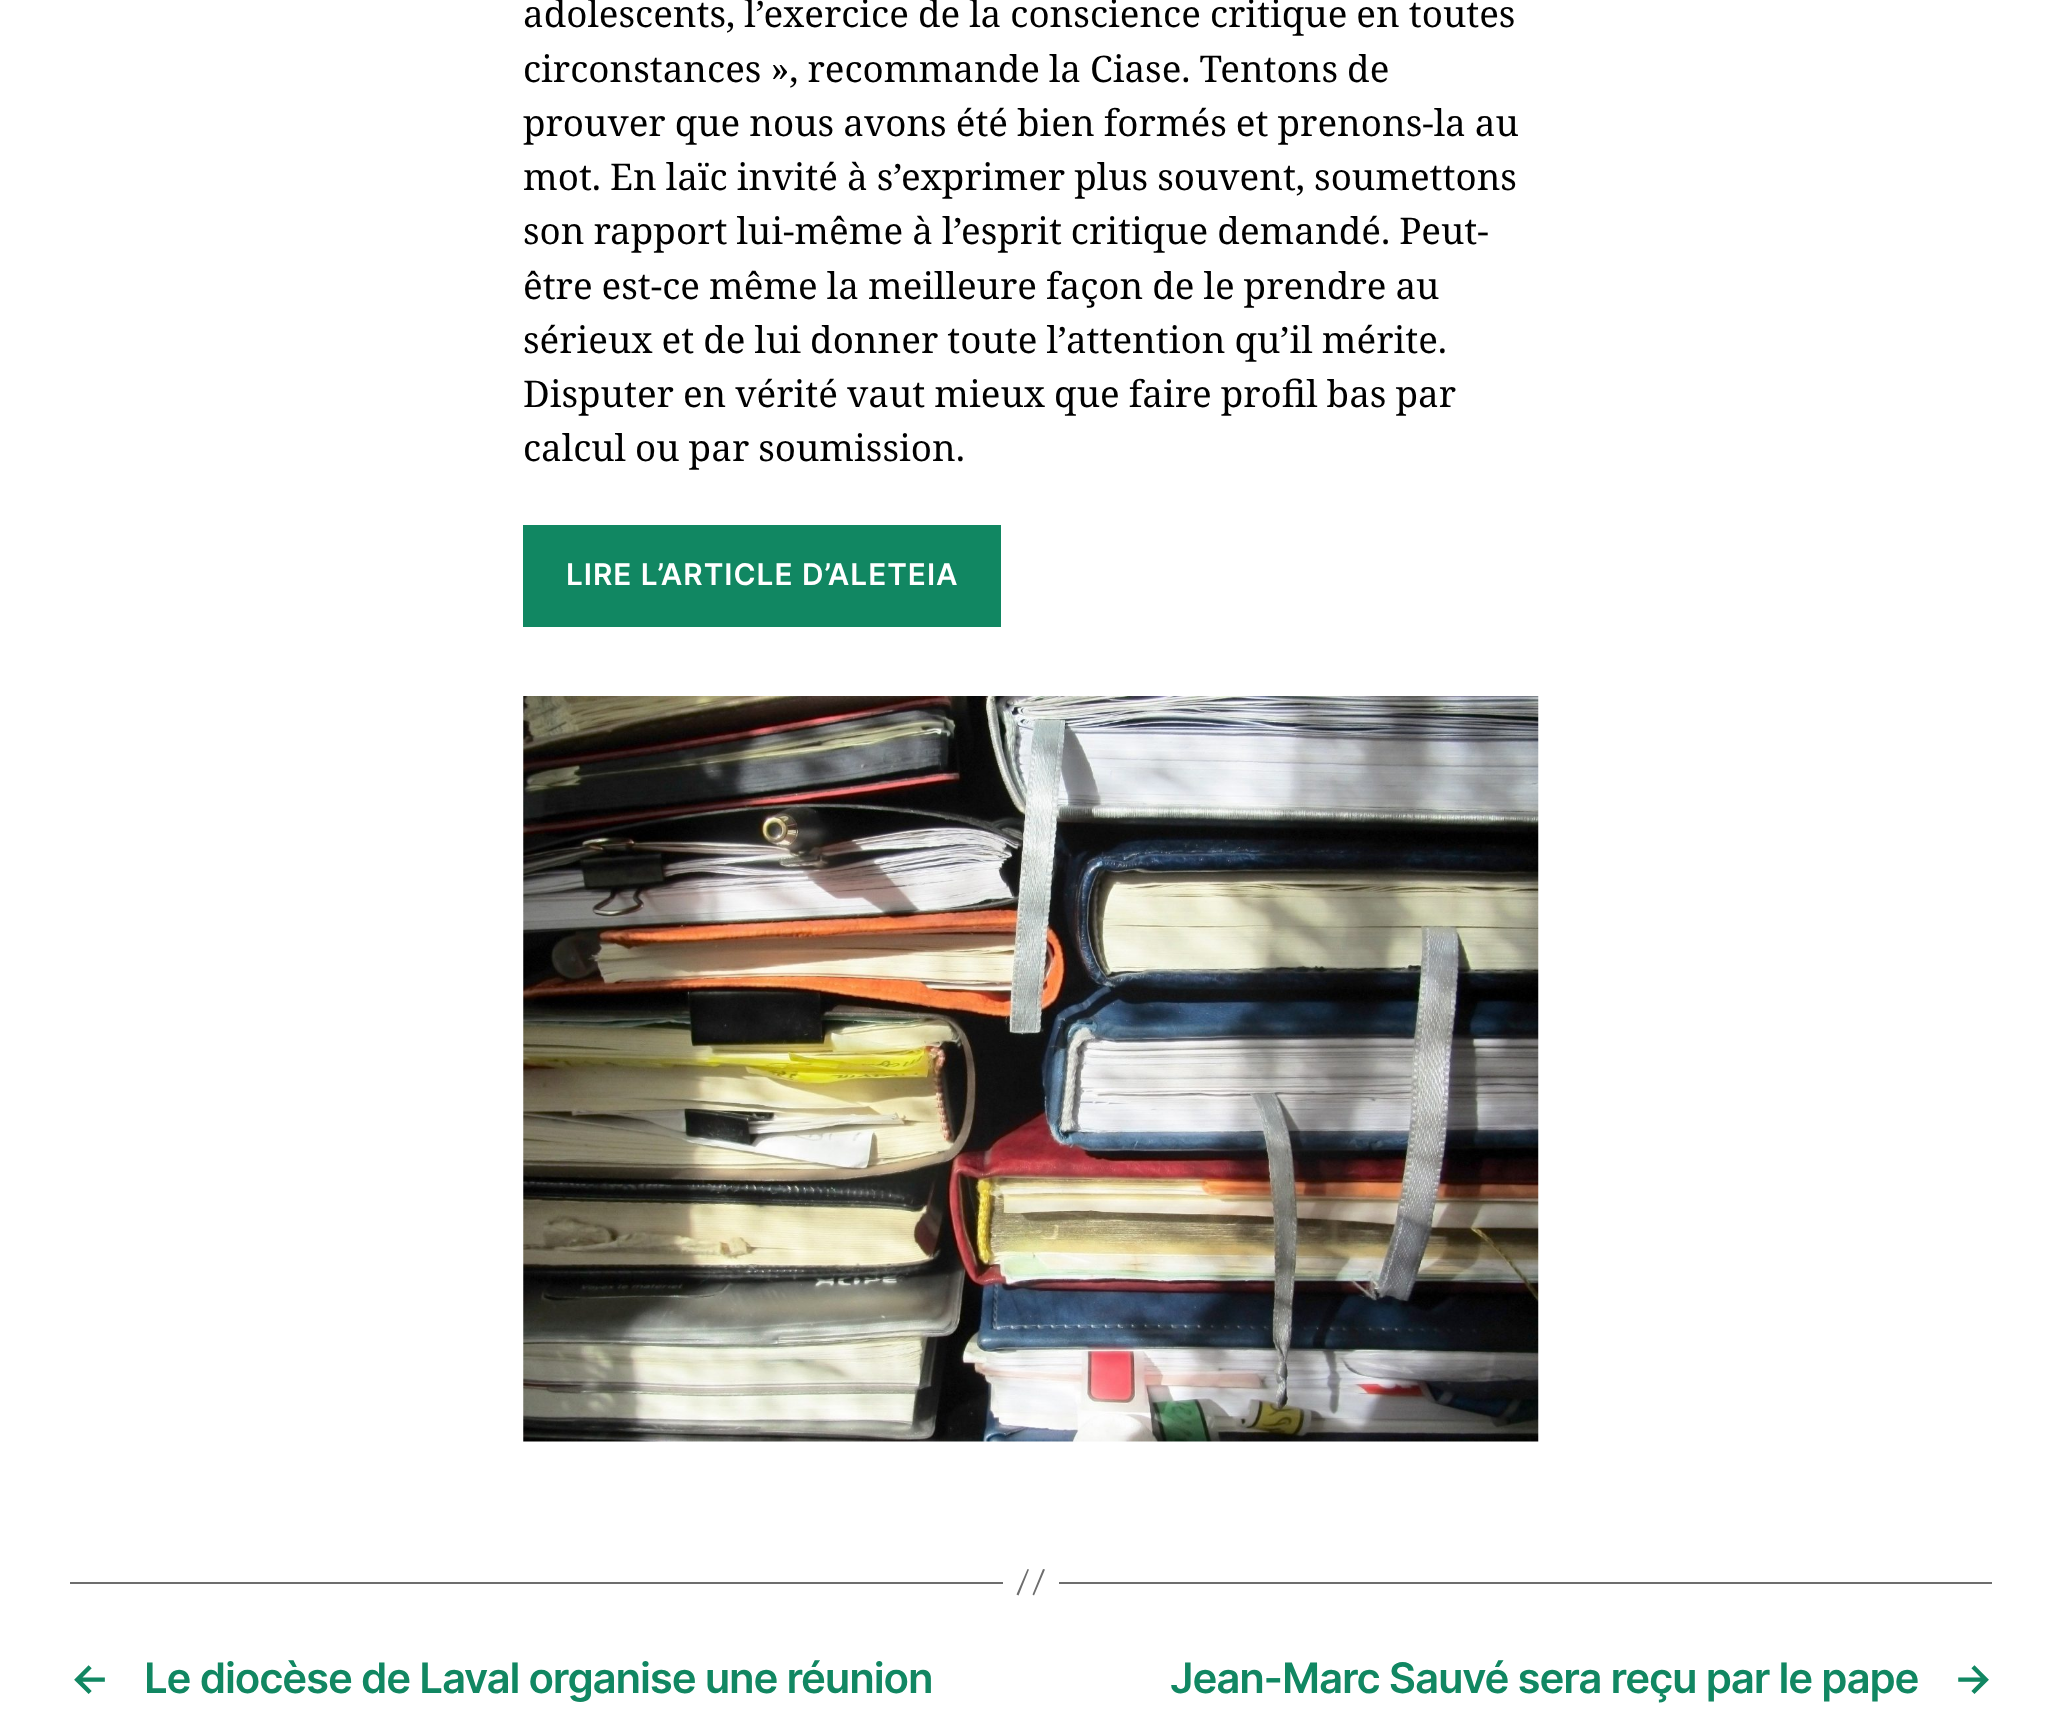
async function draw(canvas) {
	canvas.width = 2061;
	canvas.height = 1714;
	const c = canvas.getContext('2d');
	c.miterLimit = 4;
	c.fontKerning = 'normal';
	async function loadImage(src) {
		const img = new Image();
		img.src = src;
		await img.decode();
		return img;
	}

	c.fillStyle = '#fff';
	c.fillRect(0, 0, 2061, 1714);
	c.wordSpacing = '-0.5px';
	c.font = '36.75px Noto Serif';
	c.fillStyle = '#000';
	for (const [text, x, y] of [
		['adolescents, l’exercice de la conscience critique en toutes', 523, 27],
		['circonstances », recommande la Ciase. Tentons de', 523, 82],
		['prouver que nous avons été bien formés et prenons-la au', 523, 136],
		['mot. En laïc invité à s’exprimer plus souvent, soumettons', 523, 190],
		['son rapport lui-même à l’esprit critique demandé. Peut-', 523, 244],
		['être est-ce même la meilleure façon de le prendre au', 523, 299],
		['sérieux et de lui donner toute l’attention qu’il mérite.', 523, 353],
		['Disputer en vérité vaut mieux que faire profil bas par', 523, 407],
		['calcul ou par soumission.', 523, 461],
	]) {
		c.fillText(text, x, y);
	}
	c.fillStyle = '#118762';
	c.fillRect(523, 525, 478, 102);
	c.letterSpacing = '1px';
	c.wordSpacing = '0px';
	c.font = '600 29.75px Inter';
	c.fillStyle = '#fff';
	c.fillText('LIRE L’ARTICLE D’ALETEIA', 566, 585);
	c.drawImage(await loadImage('img1.png'), 523, 696, 1016, 746);
	c.fillStyle = '#6d6d6d';
	c.fillRect(1059, 1582, 933, 2);
	c.fillRect(70, 1582, 933, 2);
	c.beginPath();
	c.moveTo(1027.5, 1569);
	c.lineTo(1029, 1569.5);
	c.lineTo(1018.5, 1595.5);
	c.lineTo(1016.5, 1594.5);
	c.closePath();
	c.moveTo(1043, 1569);
	c.lineTo(1045, 1569.5);
	c.lineTo(1034, 1595.5);
	c.lineTo(1032.5, 1594.5);
	c.closePath();
	c.fill();
	c.letterSpacing = '-1.15px';
	c.font = '600 42px Inter';
	c.fillStyle = '#118762';
	for (const [text, x, y] of [
		['←', 70, 1693],
		['Le diocèse de Laval organise une réunion', 144, 1693],
		['Jean-Marc Sauvé sera reçu par le pape', 1170, 1693],
		['→', 1953, 1693],
	]) {
		c.fillText(text, x, y);
	}
}

draw(document.querySelector('canvas'));
